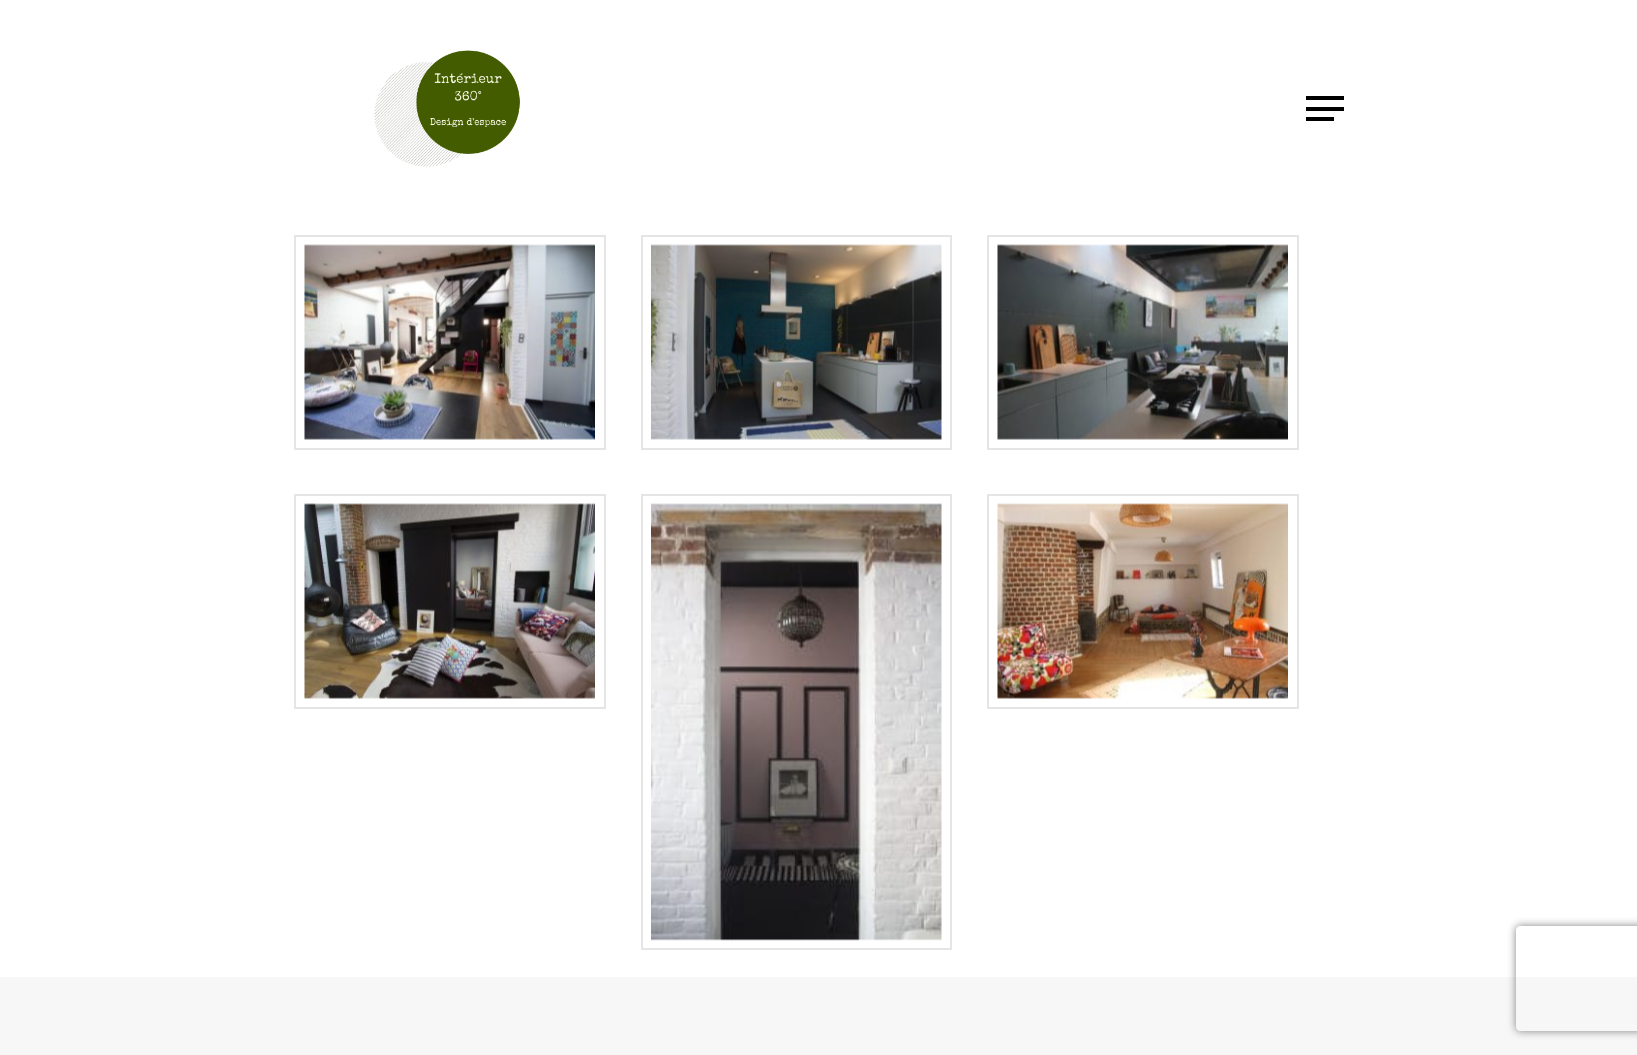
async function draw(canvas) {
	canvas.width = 1637;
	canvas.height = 1055;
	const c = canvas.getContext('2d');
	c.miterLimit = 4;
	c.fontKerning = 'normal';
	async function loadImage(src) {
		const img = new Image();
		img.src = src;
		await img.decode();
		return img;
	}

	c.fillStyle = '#fff';
	c.fillRect(0, 0, 1637, 1055);
	c.drawImage(await loadImage('img1.png'), 374, 50, 146, 117);
	for (const [x, y, w, h, color] of [
		[1306, 96, 38, 4, '#000'],
		[1306, 117, 28, 4, '#000'],
		[1306, 107, 38, 4, '#000'],
	]) {
		c.fillStyle = color;
		c.fillRect(x, y, w, h);
	}
	c.strokeStyle = '#e5e5e5';
	c.lineWidth = 2;
	c.strokeRect(295, 236, 310, 213);
	c.drawImage(await loadImage('img2.png'), 304, 244, 291, 196);
	c.strokeRect(642, 236, 309, 213);
	c.drawImage(await loadImage('img3.png'), 651, 244, 291, 196);
	c.strokeRect(988, 236, 310, 213);
	c.drawImage(await loadImage('img4.png'), 997, 244, 291, 196);
	c.strokeRect(295, 495, 310, 213);
	c.drawImage(await loadImage('img5.png'), 304, 503, 291, 196);
	c.strokeRect(642, 495, 309, 454);
	c.drawImage(await loadImage('img6.png'), 651, 503, 291, 438);
	c.strokeRect(988, 495, 310, 213);
	c.drawImage(await loadImage('img7.png'), 997, 503, 291, 196);
	c.fillStyle = '#f7f7f7';
	c.fillRect(0, 977, 1637, 78);
	c.save();
	c.beginPath();
	c.moveTo(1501, 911);
	c.lineTo(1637, 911);
	c.lineTo(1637, 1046);
	c.lineTo(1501, 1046);
	c.closePath();
	c.moveTo(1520, 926);
	c.lineTo(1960, 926);
	c.bezierCurveTo(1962, 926, 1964, 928, 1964, 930);
	c.lineTo(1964, 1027);
	c.bezierCurveTo(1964, 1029, 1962, 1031, 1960, 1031);
	c.lineTo(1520, 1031);
	c.bezierCurveTo(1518, 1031, 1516, 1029, 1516, 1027);
	c.lineTo(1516, 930);
	c.bezierCurveTo(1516, 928, 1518, 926, 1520, 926);
	c.closePath();
	c.clip('evenodd');
	c.fillStyle = '#808080';
	c.filter = 'blur(4.5px)';
	c.beginPath();
	c.roundRect(1516, 926, 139, 105, 4);
	c.fill();
	c.filter = 'none';
	c.restore();
}

draw(document.querySelector('canvas'));
